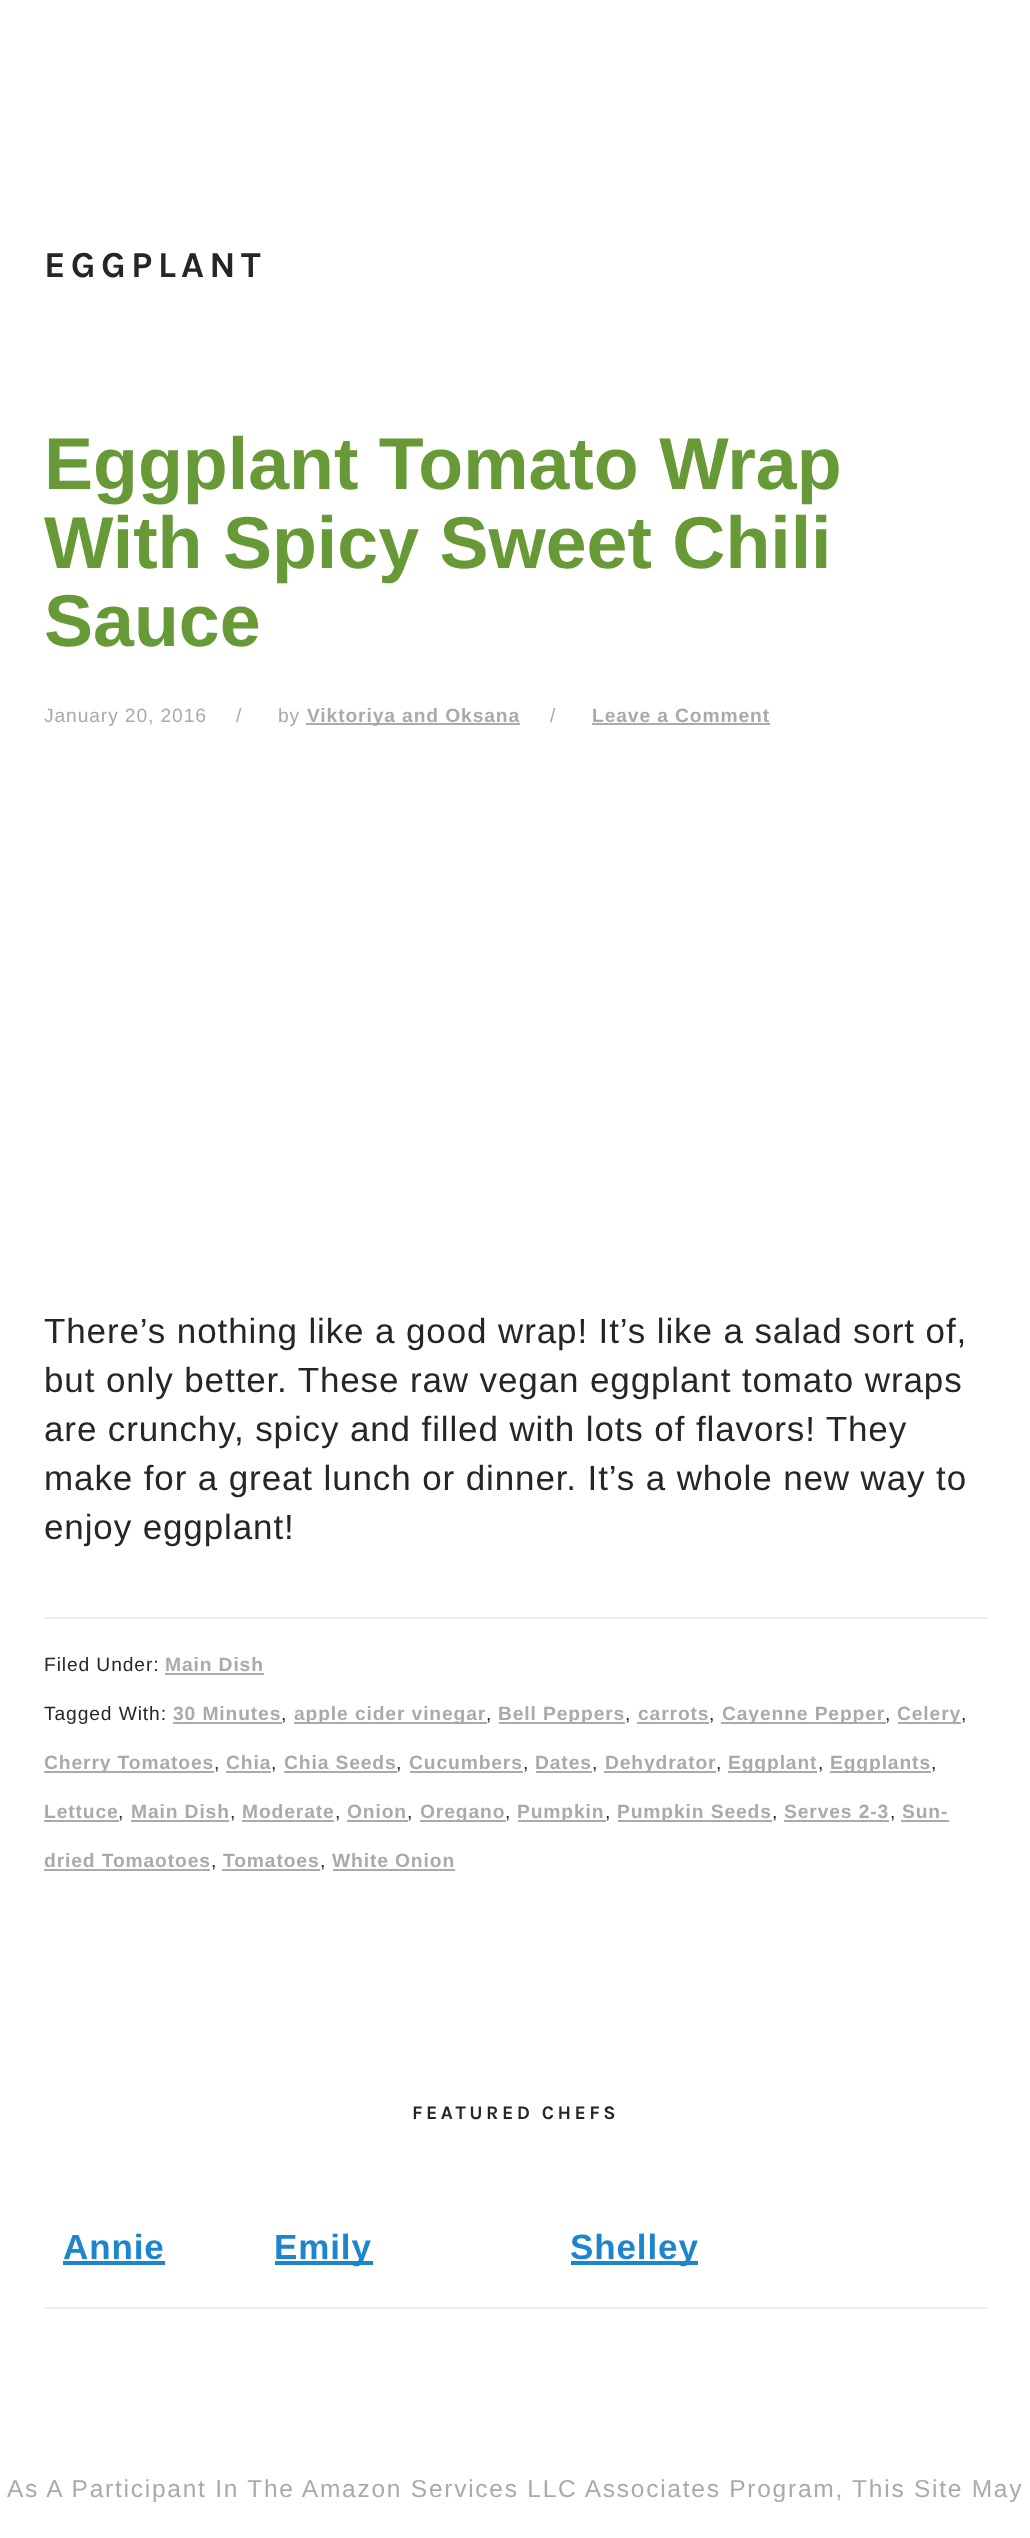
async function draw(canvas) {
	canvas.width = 1030;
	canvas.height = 2538;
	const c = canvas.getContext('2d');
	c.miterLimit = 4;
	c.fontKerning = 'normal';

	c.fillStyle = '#fff';
	c.fillRect(0, 0, 1030, 2538);
	c.letterSpacing = '5.25px';
	c.font = 'bold 36.75px Karla';
	c.fillStyle = '#262626';
	c.fillText('EGGPLANT', 44, 277);
	c.letterSpacing = '0px';
	c.font = 'bold 73.5px Liberation Sans';
	c.fillStyle = '#679936';
	for (const [text, x, y] of [
		['Eggplant Tomato Wrap', 44, 489],
		['With Spicy Sweet Chili', 44, 568],
		['Sauce', 44, 646],
	]) {
		c.fillText(text, x, y);
	}
	c.letterSpacing = '0.88px';
	c.font = '19.25px Liberation Sans';
	c.fillStyle = '#aaa';
	for (const [text, x, y] of [
		['January 20, 2016', 44, 722],
		['/', 236, 722],
		['by', 278, 722],
	]) {
		c.fillText(text, x, y);
	}
	c.fillRect(306, 723, 214, 2);
	c.font = 'bold 19.25px Liberation Sans';
	c.fillText('Viktoriya and Oksana', 307, 722);
	c.font = '19.25px Liberation Sans';
	c.fillText('/', 550, 722);
	c.font = 'bold 19.25px Liberation Sans';
	c.fillText('Leave a Comment', 592, 722);
	c.fillRect(592, 723, 178, 2);
	c.font = '35px Liberation Sans';
	c.fillStyle = '#262626';
	for (const [text, x, y] of [
		['There’s nothing like a good wrap! It’s like a salad sort of,', 44, 1343],
		['but only better. These raw vegan eggplant tomato wraps', 44, 1392],
		['are crunchy, spicy and filled with lots of flavors! They', 44, 1441],
		['make for a great lunch or dinner. It’s a whole new way to', 44, 1490],
		['enjoy eggplant!', 44, 1539],
	]) {
		c.fillText(text, x, y);
	}
	c.fillStyle = '#eee';
	c.fillRect(44, 1617, 943, 2);
	c.font = '19.25px Liberation Sans';
	c.fillStyle = '#262626';
	c.fillText('Filed Under:', 44, 1671);
	c.font = 'bold 19.25px Liberation Sans';
	c.fillStyle = '#aaa';
	c.fillText('Main Dish', 165, 1671);
	c.fillRect(165, 1673, 99, 2);
	c.font = '19.25px Liberation Sans';
	c.fillStyle = '#262626';
	c.fillText('Tagged With:', 44, 1720);
	c.font = 'bold 19.25px Liberation Sans';
	c.fillStyle = '#aaa';
	c.fillText('30 Minutes', 173, 1720);
	c.fillRect(173, 1722, 109, 2);
	c.font = '19.25px Liberation Sans';
	c.fillStyle = '#262626';
	c.fillText(',', 281, 1720);
	c.fillStyle = '#aaa';
	c.fillRect(294, 1722, 193, 2);
	c.font = 'bold 19.25px Liberation Sans';
	c.fillText('apple cider vinegar', 294, 1720);
	c.font = '19.25px Liberation Sans';
	c.fillStyle = '#262626';
	c.fillText(',', 486, 1720);
	c.fillStyle = '#aaa';
	c.fillRect(499, 1722, 126, 2);
	c.font = 'bold 19.25px Liberation Sans';
	c.fillText('Bell Peppers', 498, 1720);
	c.font = '19.25px Liberation Sans';
	c.fillStyle = '#262626';
	c.fillText(',', 625, 1720);
	c.font = 'bold 19.25px Liberation Sans';
	c.fillStyle = '#aaa';
	c.fillText('carrots', 638, 1720);
	c.fillRect(637, 1722, 72, 2);
	c.font = '19.25px Liberation Sans';
	c.fillStyle = '#262626';
	c.fillText(',', 709, 1720);
	c.fillStyle = '#aaa';
	c.fillRect(721, 1722, 165, 2);
	c.font = 'bold 19.25px Liberation Sans';
	c.fillText('Cayenne Pepper', 722, 1720);
	c.font = '19.25px Liberation Sans';
	c.fillStyle = '#262626';
	c.fillText(',', 885, 1720);
	c.fillStyle = '#aaa';
	c.fillRect(898, 1722, 63, 2);
	c.font = 'bold 19.25px Liberation Sans';
	c.fillText('Celery', 897, 1720);
	c.font = '19.25px Liberation Sans';
	c.fillStyle = '#262626';
	c.fillText(',', 961, 1720);
	c.fillStyle = '#aaa';
	c.fillRect(44, 1771, 170, 2);
	c.font = 'bold 19.25px Liberation Sans';
	c.fillText('Cherry Tomatoes', 44, 1769);
	c.font = '19.25px Liberation Sans';
	c.fillStyle = '#262626';
	c.fillText(',', 214, 1769);
	c.font = 'bold 19.25px Liberation Sans';
	c.fillStyle = '#aaa';
	c.fillText('Chia', 226, 1769);
	c.fillRect(226, 1771, 45, 2);
	c.font = '19.25px Liberation Sans';
	c.fillStyle = '#262626';
	c.fillText(',', 271, 1769);
	c.font = 'bold 19.25px Liberation Sans';
	c.fillStyle = '#aaa';
	c.fillText('Chia Seeds', 284, 1769);
	c.fillRect(284, 1771, 113, 2);
	c.font = '19.25px Liberation Sans';
	c.fillStyle = '#262626';
	c.fillText(',', 396, 1769);
	c.font = 'bold 19.25px Liberation Sans';
	c.fillStyle = '#aaa';
	c.fillText('Cucumbers', 409, 1769);
	c.fillRect(410, 1771, 113, 2);
	c.font = '19.25px Liberation Sans';
	c.fillStyle = '#262626';
	c.fillText(',', 523, 1769);
	c.font = 'bold 19.25px Liberation Sans';
	c.fillStyle = '#aaa';
	c.fillText('Dates', 535, 1769);
	c.fillRect(536, 1771, 56, 2);
	c.font = '19.25px Liberation Sans';
	c.fillStyle = '#262626';
	c.fillText(',', 592, 1769);
	c.fillStyle = '#aaa';
	c.fillRect(604, 1771, 112, 2);
	c.font = 'bold 19.25px Liberation Sans';
	c.fillText('Dehydrator', 605, 1769);
	c.font = '19.25px Liberation Sans';
	c.fillStyle = '#262626';
	c.fillText(',', 716, 1769);
	c.fillStyle = '#aaa';
	c.fillRect(728, 1771, 89, 2);
	c.font = 'bold 19.25px Liberation Sans';
	c.fillText('Eggplant', 728, 1769);
	c.font = '19.25px Liberation Sans';
	c.fillStyle = '#262626';
	c.fillText(',', 818, 1769);
	c.fillStyle = '#aaa';
	c.fillRect(830, 1771, 101, 2);
	c.font = 'bold 19.25px Liberation Sans';
	c.fillText('Eggplants', 830, 1769);
	c.font = '19.25px Liberation Sans';
	c.fillStyle = '#262626';
	c.fillText(',', 931, 1769);
	c.font = 'bold 19.25px Liberation Sans';
	c.fillStyle = '#aaa';
	c.fillText('Lettuce', 44, 1818);
	c.fillRect(44, 1820, 75, 2);
	c.font = '19.25px Liberation Sans';
	c.fillStyle = '#262626';
	c.fillText(',', 118, 1818);
	c.font = 'bold 19.25px Liberation Sans';
	c.fillStyle = '#aaa';
	c.fillText('Main Dish', 131, 1818);
	c.fillRect(131, 1820, 98, 2);
	c.font = '19.25px Liberation Sans';
	c.fillStyle = '#262626';
	c.fillText(',', 230, 1818);
	c.font = 'bold 19.25px Liberation Sans';
	c.fillStyle = '#aaa';
	c.fillText('Moderate', 242, 1818);
	c.fillRect(242, 1820, 92, 2);
	c.font = '19.25px Liberation Sans';
	c.fillStyle = '#262626';
	c.fillText(',', 335, 1818);
	c.font = 'bold 19.25px Liberation Sans';
	c.fillStyle = '#aaa';
	c.fillText('Onion', 347, 1818);
	c.fillRect(347, 1820, 61, 2);
	c.font = '19.25px Liberation Sans';
	c.fillStyle = '#262626';
	c.fillText(',', 407, 1818);
	c.fillStyle = '#aaa';
	c.fillRect(420, 1820, 86, 2);
	c.font = 'bold 19.25px Liberation Sans';
	c.fillText('Oregano', 420, 1818);
	c.font = '19.25px Liberation Sans';
	c.fillStyle = '#262626';
	c.fillText(',', 505, 1818);
	c.fillStyle = '#aaa';
	c.fillRect(518, 1820, 88, 2);
	c.font = 'bold 19.25px Liberation Sans';
	c.fillText('Pumpkin', 517, 1818);
	c.font = '19.25px Liberation Sans';
	c.fillStyle = '#262626';
	c.fillText(',', 605, 1818);
	c.fillStyle = '#aaa';
	c.fillRect(618, 1820, 154, 2);
	c.font = 'bold 19.25px Liberation Sans';
	c.fillText('Pumpkin Seeds', 617, 1818);
	c.font = '19.25px Liberation Sans';
	c.fillStyle = '#262626';
	c.fillText(',', 772, 1818);
	c.font = 'bold 19.25px Liberation Sans';
	c.fillStyle = '#aaa';
	c.fillText('Serves 2-3', 784, 1818);
	c.fillRect(784, 1820, 105, 2);
	c.font = '19.25px Liberation Sans';
	c.fillStyle = '#262626';
	c.fillText(',', 890, 1818);
	c.font = 'bold 19.25px Liberation Sans';
	c.fillStyle = '#aaa';
	c.fillText('Sun-', 902, 1818);
	c.fillRect(901, 1820, 48, 2);
	c.fillText('dried Tomaotoes', 44, 1867);
	c.fillRect(44, 1869, 166, 2);
	c.font = '19.25px Liberation Sans';
	c.fillStyle = '#262626';
	c.fillText(',', 211, 1867);
	c.font = 'bold 19.25px Liberation Sans';
	c.fillStyle = '#aaa';
	c.fillText('Tomatoes', 223, 1867);
	c.fillRect(222, 1869, 98, 2);
	c.font = '19.25px Liberation Sans';
	c.fillStyle = '#262626';
	c.fillText(',', 320, 1867);
	c.font = 'bold 19.25px Liberation Sans';
	c.fillStyle = '#aaa';
	c.fillText('White Onion', 332, 1867);
	c.fillRect(333, 1869, 122, 2);
	c.fillStyle = '#eee';
	c.fillRect(44, 2307, 943, 2);
	c.letterSpacing = '3.5px';
	c.font = 'bold 19.25px Karla';
	c.fillStyle = '#262626';
	c.fillText('FEATURED CHEFS', 412, 2119);
	c.letterSpacing = '0.88px';
	c.font = 'bold 35px Liberation Sans';
	c.fillStyle = '#1c85cd';
	c.fillText('Annie', 63, 2259);
	c.fillRect(63, 2261, 102, 4);
	c.fillRect(275, 2261, 98, 4);
	c.fillText('Emily', 274, 2259);
	c.fillRect(571, 2261, 127, 4);
	c.fillText('Shelley', 570, 2259);
	c.letterSpacing = '1.75px';
	c.font = '24.5px Liberation Sans';
	c.fillStyle = '#aaa';
	c.fillText('As A Participant In The Amazon Services LLC Associates Program, This Site May', 7, 2497);
}

draw(document.querySelector('canvas'));
